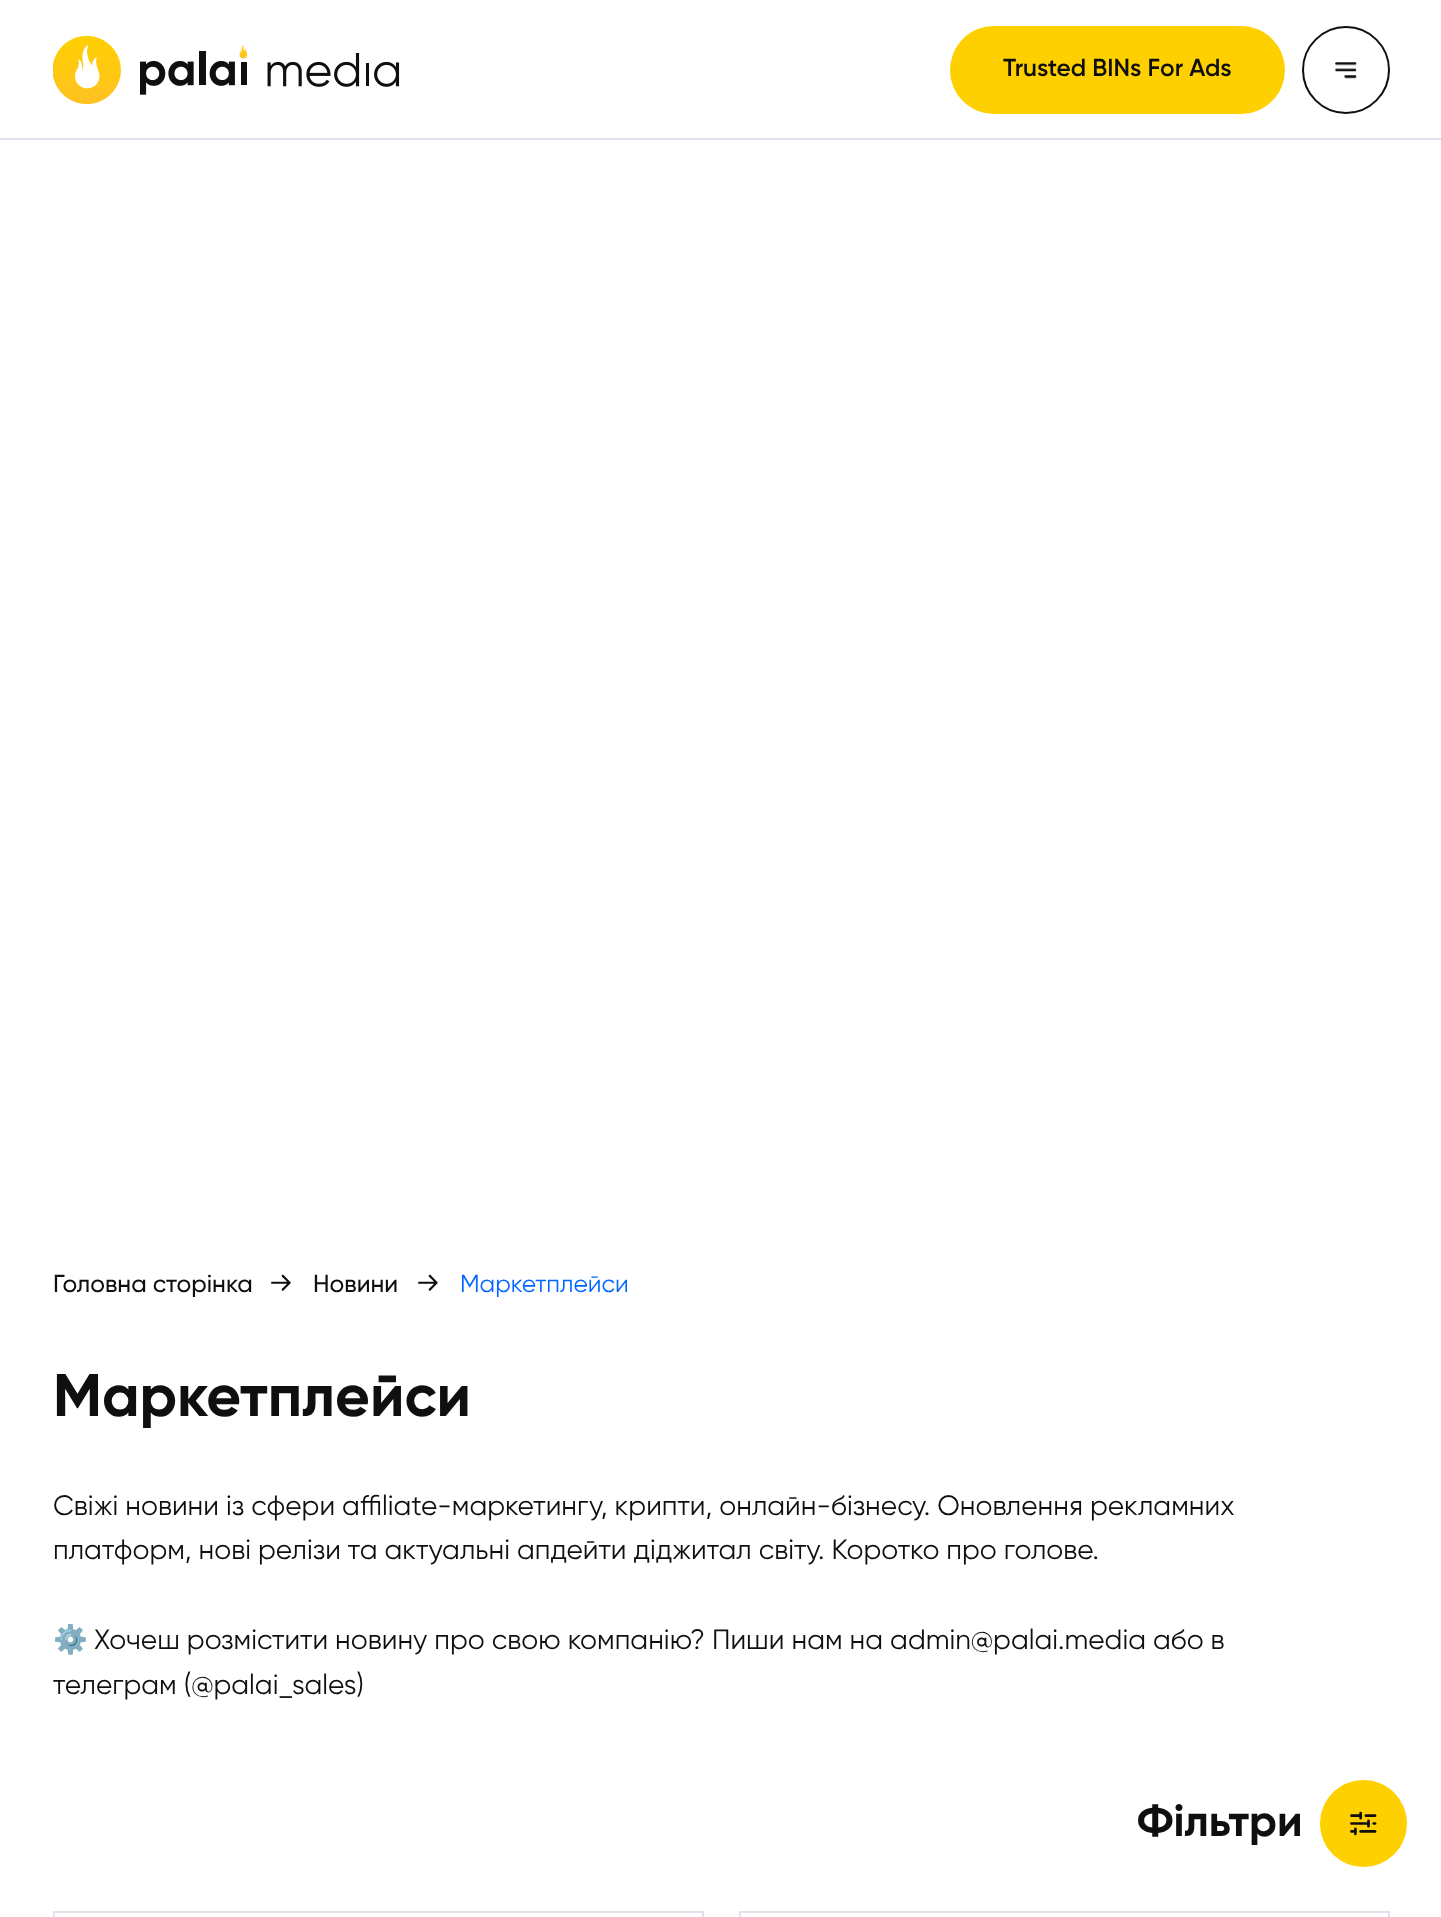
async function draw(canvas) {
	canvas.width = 1441;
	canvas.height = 1917;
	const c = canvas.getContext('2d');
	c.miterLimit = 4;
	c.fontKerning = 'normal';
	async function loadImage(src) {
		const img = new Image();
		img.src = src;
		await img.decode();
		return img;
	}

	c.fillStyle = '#fff';
	c.fillRect(0, 0, 1441, 1917);
	c.fillStyle = '#e0e2ee';
	c.fillRect(0, 138, 1441, 2);
	c.drawImage(await loadImage('img1.png'), 53, 35, 68, 70);
	c.drawImage(await loadImage('img2.png'), 140, 45, 108, 50);
	c.drawImage(await loadImage('img3.png'), 267, 53, 133, 34);
	c.fillStyle = '#ffd000';
	c.beginPath();
	c.roundRect(950, 26, 335, 88, 44);
	c.fill();
	c.font = '600 24.5px Gilroy';
	c.fillStyle = '#0f0f0f';
	c.fillText('Trusted BINs For Ads', 1003, 76);
	c.beginPath();
	c.arc(1346, 70, 43, 0, 2 * Math.PI);
	c.strokeStyle = '#0f0f0f';
	c.lineWidth = 2;
	c.stroke();
	c.drawImage(await loadImage('img4.png'), 1335, 62, 22, 17);
	c.font = '500 24.5px Gilroy';
	c.fillText('Головна сторінка', 53, 1292);
	c.drawImage(await loadImage('img5.png'), 271, 1274, 20, 17);
	c.fillText('Новини', 313, 1292);
	c.drawImage(await loadImage('img5.png'), 418, 1274, 20, 17);
	c.font = '24.5px Gilroy';
	c.fillStyle = '#0366ff';
	c.fillText('Маркетплейси', 460, 1292);
	c.font = 'bold 60px Gilroy';
	c.fillStyle = '#0f0f0f';
	c.fillText('Маркетплейси', 53, 1416);
	c.font = '28px Gilroy';
	c.fillText('Свіжі новини із сфери affiliate-маркетингу, крипти, онлайн-бізнесу. Оновлення рекламних', 53, 1515);
	c.fillText('платформ, нові релізи та актуальні апдейти діджитал світу. Коротко про голове.', 53, 1559);
	c.font = '28px Noto Color Emoji';
	c.fillText('⚙️', 53, 1649);
	c.font = '28px Gilroy';
	c.fillText('Хочеш розмістити новину про свою компанію? Пиши нам на admin@palai.media або в', 94, 1649);
	c.fillText('телеграм (@palai_sales)', 53, 1694);
	c.font = 'bold 44.5px Gilroy';
	c.fillText('Фільтри', 1137, 1836);
	c.fillStyle = '#ffd000';
	c.beginPath();
	c.arc(1363.5, 1823.5, 43.5, 0, 2 * Math.PI);
	c.fill();
	c.drawImage(await loadImage('img6.png'), 1350, 1811, 27, 25);
	c.strokeStyle = '#e0e2ee';
	c.strokeRect(54, 1912, 649, 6);
	c.strokeRect(740, 1912, 649, 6);
}

draw(document.querySelector('canvas'));
